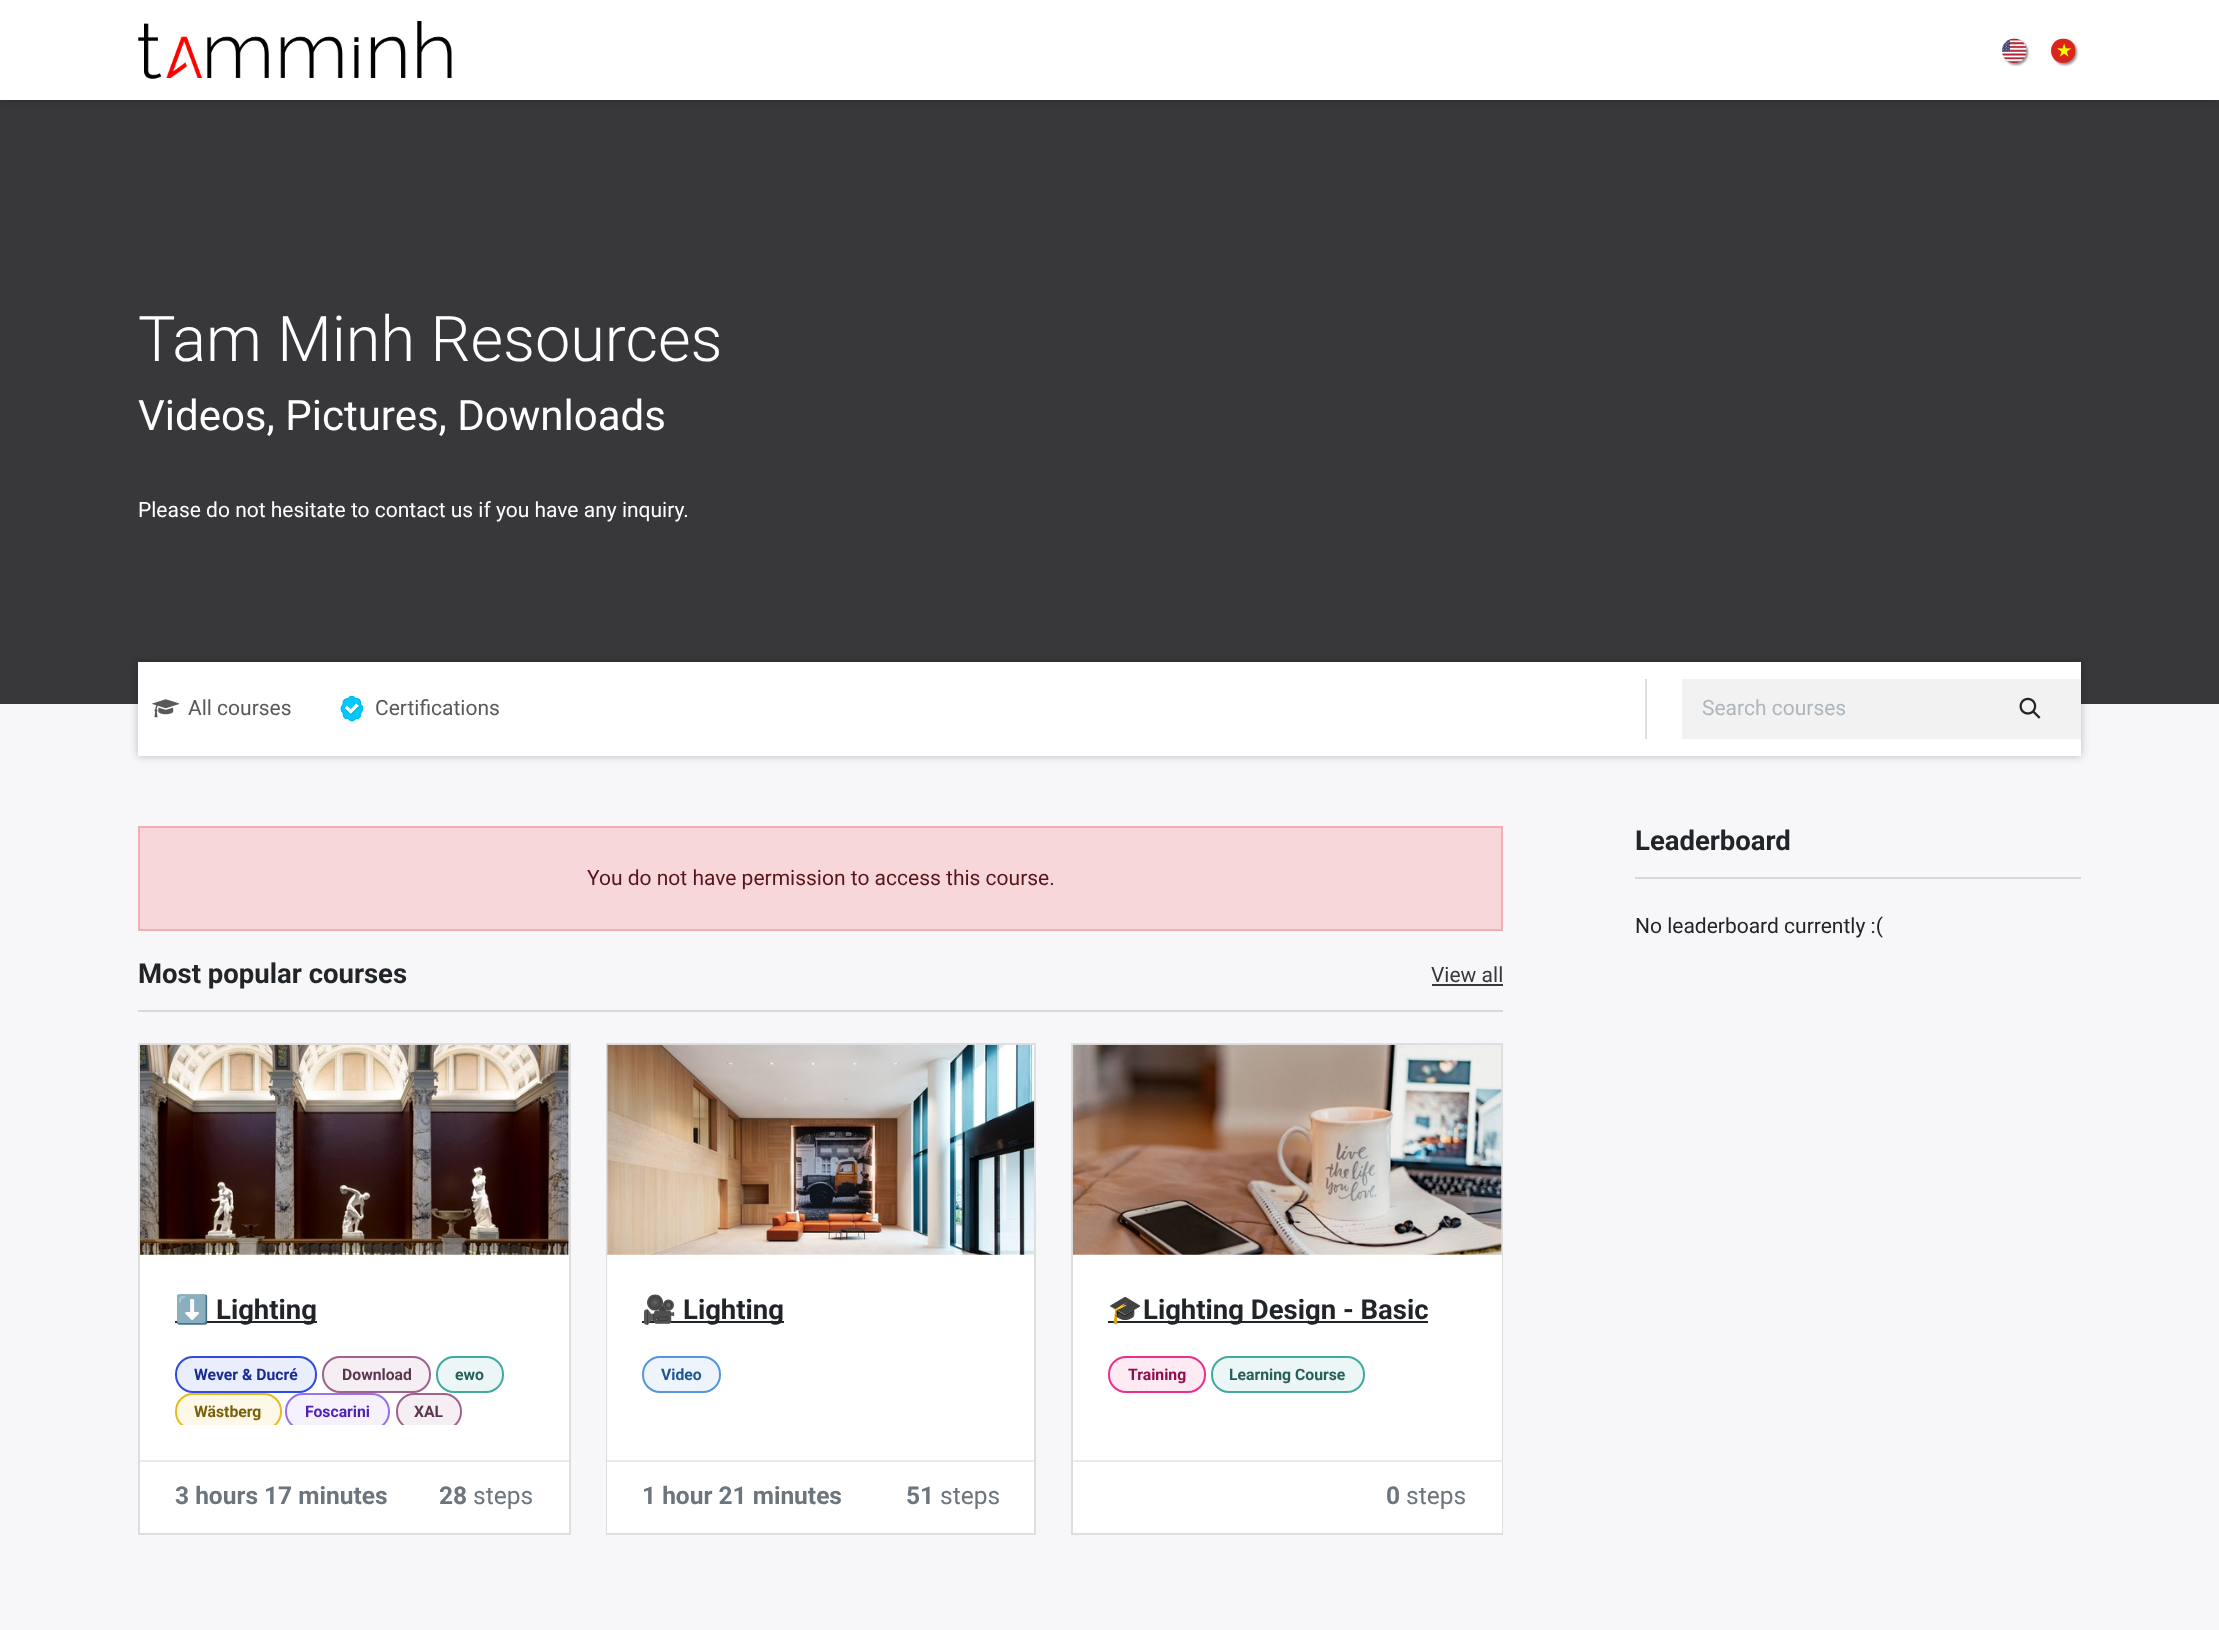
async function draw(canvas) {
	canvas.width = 2219;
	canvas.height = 1630;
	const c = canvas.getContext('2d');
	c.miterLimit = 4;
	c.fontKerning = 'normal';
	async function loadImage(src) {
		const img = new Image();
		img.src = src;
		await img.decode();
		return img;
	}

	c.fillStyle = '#f7f7fa';
	c.fillRect(0, 0, 2219, 1630);
	c.fillStyle = '#38383b';
	c.fillRect(0, 100, 2219, 604);
	c.fillStyle = '#00000040';
	c.filter = 'blur(4.5px)';
	c.beginPath();
	c.rect(0, 0, 2219, 100);
	c.fill();
	c.filter = 'none';
	c.fillStyle = '#fff';
	c.fillRect(0, 0, 2219, 100);
	c.drawImage(await loadImage('img1.png'), 138, 21, 314, 58);
	c.fillStyle = '#0000006e';
	c.filter = 'blur(1px)';
	c.beginPath();
	c.roundRect(2004, 40, 24, 25, 12);
	c.fill();
	c.filter = 'none';
	c.drawImage(await loadImage('img2.png'), 2002, 38, 25, 25);
	c.filter = 'blur(1px)';
	c.beginPath();
	c.roundRect(2053, 40, 24, 25, 12);
	c.fill();
	c.filter = 'none';
	c.drawImage(await loadImage('img3.png'), 2051, 38, 25, 25);
	c.font = '300 63px Roboto';
	c.fillStyle = '#fff';
	c.fillText('Tam Minh Resources', 138, 361);
	c.font = '42px Roboto';
	c.fillText('Videos, Pictures, Downloads', 138, 430);
	c.font = '21px Roboto';
	c.fillText('Please do not hesitate to contact us if you have any inquiry.', 138, 517);
	c.fillStyle = '#00000040';
	c.filter = 'blur(4.5px)';
	c.beginPath();
	c.rect(138, 662, 1943, 94);
	c.fill();
	c.filter = 'none';
	c.fillStyle = '#fff';
	c.fillRect(138, 662, 1943, 94);
	c.drawImage(await loadImage('img4.png'), 152, 699, 28, 19);
	c.fillStyle = '#595959';
	c.fillText('All courses', 188, 715);
	c.drawImage(await loadImage('img5.png'), 340, 695, 24, 27);
	c.fillText('Certifications', 375, 715);
	c.fillStyle = '#dededf';
	c.fillRect(1645, 679, 2, 60);
	c.fillStyle = '#f2f2f3';
	c.fillRect(1682, 679, 399, 60);
	c.fillStyle = '#adb5bd';
	c.fillText('Search courses', 1702, 715);
	c.drawImage(await loadImage('img6.png'), 2019, 697, 22, 22);
	c.fillStyle = '#f8d7da';
	c.beginPath();
	c.rect(139, 827, 1363, 103);
	c.fill();
	c.strokeStyle = '#f1aeb5';
	c.lineWidth = 2;
	c.stroke();
	c.fillStyle = '#58151c';
	c.fillText('You do not have permission to access this course.', 587, 885);
	c.font = 'bold 27.5px Roboto';
	c.fillStyle = '#212529';
	c.fillText('Most popular courses', 138, 983);
	c.font = '21px Roboto';
	c.fillStyle = '#38383b';
	c.fillText('View all', 1431, 982);
	c.fillRect(1432, 984, 71, 2);
	c.fillStyle = '#d7d8db';
	c.fillRect(138, 1010, 1365, 2);
	c.fillStyle = '#fff';
	c.beginPath();
	c.rect(139, 1044, 431, 490);
	c.fill();
	c.strokeStyle = '#dededf';
	c.stroke();
	c.drawImage(await loadImage('img7.png'), 140, 1044, 429, 211);
	c.fillStyle = '#212529';
	c.fillRect(175, 1321, 142, 2);
	c.font = 'bold 27.5px Noto Color Emoji';
	c.fillText('⬇️', 175, 1319);
	c.font = 'bold 27.5px Roboto';
	c.fillText('Lighting', 216, 1319);
	c.fillStyle = '#eaedfc';
	c.beginPath();
	c.roundRect(176, 1357, 140, 35, 17);
	c.fill();
	c.strokeStyle = '#304be0';
	c.stroke();
	c.font = 'bold 15.75px Roboto';
	c.fillStyle = '#172b98';
	c.fillText('Wever & Ducré', 194, 1380);
	c.fillStyle = '#f5eff4';
	c.beginPath();
	c.roundRect(323, 1357, 107, 35, 17);
	c.fill();
	c.strokeStyle = '#9f628f';
	c.stroke();
	c.fillStyle = '#5a3751';
	c.fillText('Download', 342, 1380);
	c.fillStyle = '#ecf6f6';
	c.beginPath();
	c.roundRect(437, 1357, 66, 35, 17);
	c.fill();
	c.strokeStyle = '#41a9a2';
	c.stroke();
	c.fillStyle = '#255f5b';
	c.fillText('ewo', 455, 1380);
	c.save();
	c.beginPath();
	c.rect(175, 1348, 359, 77);
	c.clip();
	c.fillStyle = '#fdf8e8';
	c.beginPath();
	c.roundRect(176, 1394, 105, 35, 17);
	c.fill();
	c.strokeStyle = '#e8bb1d';
	c.stroke();
	c.restore();
	c.fillStyle = '#79610c';
	c.fillText('Wästberg', 194, 1417);
	c.save();
	c.beginPath();
	c.rect(175, 1348, 359, 77);
	c.clip();
	c.fillStyle = '#f5f1fd';
	c.beginPath();
	c.roundRect(286, 1394, 103, 35, 17);
	c.fill();
	c.strokeStyle = '#9872e6';
	c.stroke();
	c.restore();
	c.fillStyle = '#5221b8';
	c.fillText('Foscarini', 305, 1417);
	c.save();
	c.beginPath();
	c.rect(175, 1348, 359, 77);
	c.clip();
	c.fillStyle = '#f5eff4';
	c.beginPath();
	c.roundRect(397, 1394, 64, 35, 17);
	c.fill();
	c.strokeStyle = '#9f628f';
	c.stroke();
	c.restore();
	c.fillStyle = '#5a3751';
	c.fillText('XAL', 414, 1417);
	c.fillStyle = '#e9eaec';
	c.fillRect(140, 1460, 429, 2);
	c.font = 'bold 24.5px Roboto';
	c.fillStyle = '#6c757d';
	c.fillText('3 hours 17 minutes', 175, 1504);
	c.fillText('28', 439, 1504);
	c.font = '24.5px Roboto';
	c.fillText('steps', 473, 1504);
	c.fillStyle = '#fff';
	c.fillRect(608, 1254, 426, 206);
	c.strokeStyle = '#dededf';
	c.strokeRect(607, 1044, 428, 490);
	c.drawImage(await loadImage('img8.png'), 607, 1044, 428, 211);
	c.fillStyle = '#ffffffe6';
	c.fillRect(607, 1255, 1, 205);
	c.fillStyle = '#212529';
	c.fillRect(642, 1321, 142, 2);
	c.save();
	c.beginPath();
	c.rect(642, 1290, 357, 40);
	c.clip();
	c.font = 'bold 27.5px Noto Color Emoji';
	c.fillText('🎥', 642, 1319);
	c.restore();
	c.font = 'bold 27.5px Roboto';
	c.fillText('Lighting', 683, 1319);
	c.fillStyle = '#eef4fc';
	c.beginPath();
	c.roundRect(643, 1357, 77, 35, 17);
	c.fill();
	c.strokeStyle = '#5794dd';
	c.stroke();
	c.font = 'bold 15.75px Roboto';
	c.fillStyle = '#1e5596';
	c.fillText('Video', 661, 1380);
	c.fillStyle = '#fff';
	c.fillRect(607, 1462, 427, 71);
	c.fillStyle = '#e9eaec';
	c.fillRect(607, 1460, 427, 2);
	c.font = 'bold 24.5px Roboto';
	c.fillStyle = '#6c757d';
	c.fillText('1 hour 21 minutes', 642, 1504);
	c.fillText('51', 906, 1504);
	c.font = '24.5px Roboto';
	c.fillText('steps', 940, 1504);
	c.fillStyle = '#fff';
	c.fillRect(1073, 1254, 428, 206);
	c.strokeStyle = '#dededf';
	c.strokeRect(1072, 1044, 430, 490);
	c.drawImage(await loadImage('img9.png'), 1072, 1044, 430, 211);
	c.fillStyle = '#ffffffe6';
	c.fillRect(1501, 1255, 1, 205);
	c.fillStyle = '#212529';
	c.fillRect(1108, 1321, 320, 2);
	c.font = 'bold 27.5px Noto Color Emoji';
	c.fillText('🎓', 1108, 1319);
	c.font = 'bold 27.5px Roboto';
	c.fillText('Lighting Design - Basic', 1143, 1319);
	c.fillStyle = '#fdeaf3';
	c.beginPath();
	c.roundRect(1109, 1357, 96, 35, 17);
	c.fill();
	c.strokeStyle = '#ee2f8a';
	c.stroke();
	c.font = 'bold 15.75px Roboto';
	c.fillStyle = '#920c4c';
	c.fillText('Training', 1128, 1380);
	c.fillStyle = '#ecf6f6';
	c.beginPath();
	c.roundRect(1212, 1357, 152, 35, 17);
	c.fill();
	c.strokeStyle = '#41a9a2';
	c.stroke();
	c.fillStyle = '#255f5b';
	c.fillText('Learning Course', 1229, 1380);
	c.fillStyle = '#fff';
	c.fillRect(1073, 1462, 429, 71);
	c.fillStyle = '#e9eaec';
	c.fillRect(1073, 1460, 429, 2);
	c.font = 'bold 24.5px Roboto';
	c.fillStyle = '#6c757d';
	c.fillText('0', 1386, 1504);
	c.font = '24.5px Roboto';
	c.fillText('steps', 1406, 1504);
	c.font = 'bold 27.5px Roboto';
	c.fillStyle = '#212529';
	c.fillText('Leaderboard', 1635, 850);
	c.fillStyle = '#d7d8db';
	c.fillRect(1635, 877, 446, 2);
	c.font = '21px Roboto';
	c.fillStyle = '#212529';
	c.fillText('No leaderboard currently :(', 1635, 933);
}

draw(document.querySelector('canvas'));
